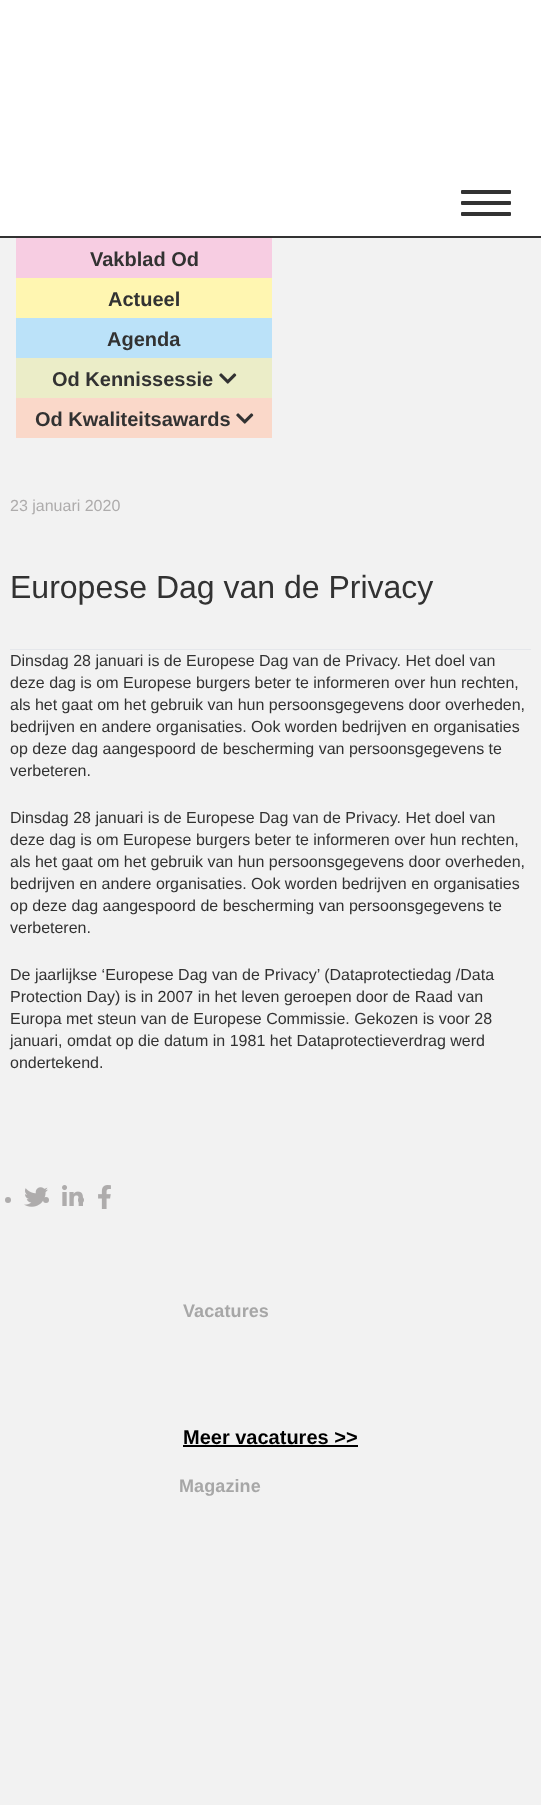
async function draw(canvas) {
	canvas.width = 541;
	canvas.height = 1805;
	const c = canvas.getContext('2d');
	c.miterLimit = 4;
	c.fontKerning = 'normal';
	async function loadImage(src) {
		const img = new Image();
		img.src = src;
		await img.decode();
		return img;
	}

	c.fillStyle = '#f2f2f2';
	c.fillRect(0, 0, 541, 1805);
	c.fillStyle = '#fff';
	c.fillRect(0, 0, 541, 236);
	c.fillStyle = '#323232';
	c.fillRect(0, 236, 541, 2);
	c.beginPath();
	c.roundRect(461, 201, 50, 4, 1);
	c.fill();
	c.beginPath();
	c.roundRect(461, 190, 50, 4, 1);
	c.fill();
	c.beginPath();
	c.roundRect(461, 212, 50, 4, 1);
	c.fill();
	c.fillStyle = '#f7cde2';
	c.fillRect(16, 238, 256, 40);
	c.font = 'bold 20px Liberation Sans';
	c.fillStyle = '#323232';
	c.fillText('Vakblad Od', 90, 266);
	c.fillStyle = '#fff6b1';
	c.fillRect(16, 278, 256, 40);
	c.fillStyle = '#323232';
	c.fillText('Actueel', 108, 306);
	c.fillStyle = '#bbe2f9';
	c.fillRect(16, 318, 256, 40);
	c.fillStyle = '#323232';
	c.fillText('Agenda', 107, 346);
	c.fillStyle = '#ebedc8';
	c.fillRect(16, 358, 256, 40);
	c.fillStyle = '#323232';
	c.fillText('Od Kennissessie', 52, 386);
	c.drawImage(await loadImage('img1.png'), 219, 373, 18, 11);
	c.fillStyle = '#fad8c9';
	c.fillRect(16, 398, 256, 40);
	c.fillStyle = '#323232';
	c.fillText('Od Kwaliteitsawards', 35, 426);
	c.drawImage(await loadImage('img2.png'), 236, 413, 18, 11);
	c.font = '16px Liberation Sans';
	c.fillStyle = '#aeacac';
	c.fillText('23 januari 2020', 10, 511);
	c.font = '32px Liberation Sans';
	c.fillStyle = '#323232';
	c.fillText('Europese Dag van de Privacy', 10, 598);
	c.fillStyle = '#e5e7eb';
	c.fillRect(10, 649, 521, 1);
	c.font = '16px Liberation Sans';
	c.fillStyle = '#323232';
	for (const [text, x, y] of [
		['Dinsdag 28 januari is de Europese Dag van de Privacy. Het doel van', 10, 666],
		['deze dag is om Europese burgers beter te informeren over hun rechten,', 10, 688],
		['als het gaat om het gebruik van hun persoonsgegevens door overheden,', 10, 710],
		['bedrijven en andere organisaties. Ook worden bedrijven en organisaties', 10, 732],
		['op deze dag aangespoord de bescherming van persoonsgegevens te', 10, 754],
		['verbeteren.', 10, 776],
		['Dinsdag 28 januari is de Europese Dag van de Privacy. Het doel van', 10, 823],
		['deze dag is om Europese burgers beter te informeren over hun rechten,', 10, 845],
		['als het gaat om het gebruik van hun persoonsgegevens door overheden,', 10, 867],
		['bedrijven en andere organisaties. Ook worden bedrijven en organisaties', 10, 889],
		['op deze dag aangespoord de bescherming van persoonsgegevens te', 10, 911],
		['verbeteren.', 10, 933],
		['De jaarlijkse ‘Europese Dag van de Privacy’ (Dataprotectiedag /Data', 10, 980],
		['Protection Day) is in 2007 in het leven geroepen door de Raad van', 10, 1002],
		['Europa met steun van de Europese Commissie. Gekozen is voor 28', 10, 1024],
		['januari, omdat op die datum in 1981 het Dataprotectieverdrag werd', 10, 1046],
		['ondertekend.', 10, 1068],
	]) {
		c.fillText(text, x, y);
	}
	c.fillStyle = '#aeacac';
	c.beginPath();
	c.arc(8, 1200, 3, 0, 2 * Math.PI);
	c.fill();
	c.drawImage(await loadImage('img3.png'), 24, 1187, 24, 20);
	c.beginPath();
	c.arc(46, 1200, 3, 0, 2 * Math.PI);
	c.fill();
	c.drawImage(await loadImage('img4.png'), 62, 1185, 21, 21);
	c.beginPath();
	c.arc(81, 1200, 3, 0, 2 * Math.PI);
	c.fill();
	c.drawImage(await loadImage('img5.png'), 98, 1185, 13, 24);
	c.letterSpacing = '0.1px';
	c.font = 'bold 18px Liberation Sans';
	c.fillStyle = '#a7a7a7';
	c.fillText('Vacatures', 183, 1317);
	c.letterSpacing = '0px';
	c.font = 'bold 20px Liberation Sans';
	c.fillStyle = '#000';
	c.fillText('Meer vacatures >>', 183, 1444);
	c.fillRect(183, 1445, 175, 2);
	c.letterSpacing = '0.1px';
	c.font = 'bold 18px Liberation Sans';
	c.fillStyle = '#a7a7a7';
	c.fillText('Magazine', 179, 1492);
}

draw(document.querySelector('canvas'));
